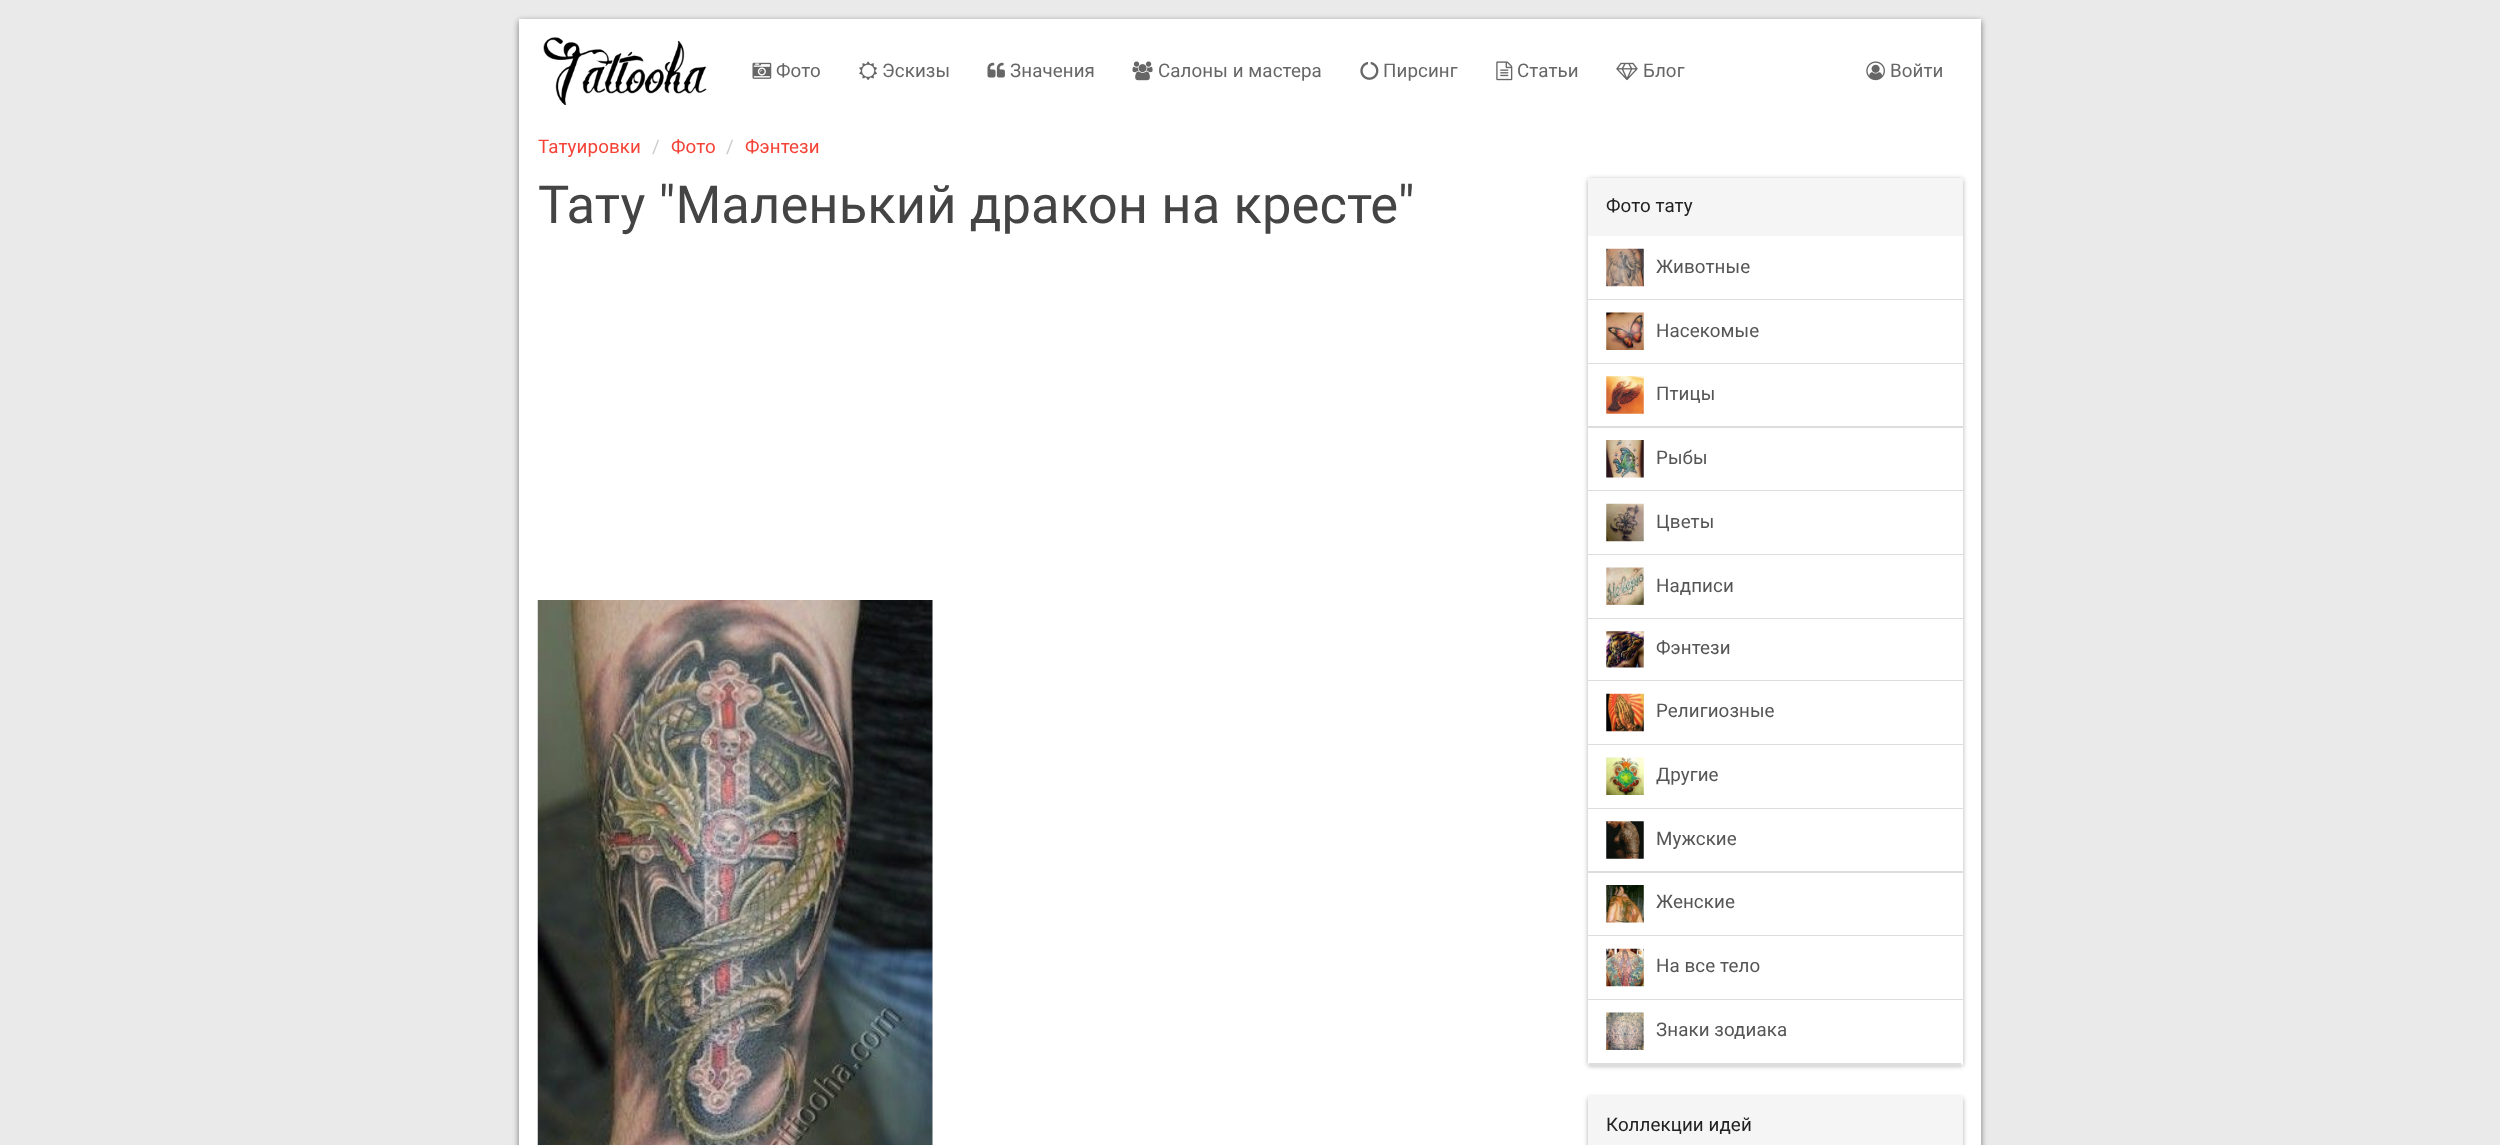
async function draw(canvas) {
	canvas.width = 2500;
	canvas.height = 1145;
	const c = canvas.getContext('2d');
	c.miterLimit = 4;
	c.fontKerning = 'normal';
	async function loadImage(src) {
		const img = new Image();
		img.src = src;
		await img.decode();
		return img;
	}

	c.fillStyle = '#eaeaea';
	c.fillRect(0, 0, 2500, 1145);
	c.fillStyle = '#00000080';
	c.filter = 'blur(3px)';
	c.beginPath();
	c.rect(519, 21, 1462, 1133);
	c.fill();
	c.filter = 'none';
	c.fillStyle = '#fff';
	c.fillRect(519, 19, 1462, 1126);
	c.drawImage(await loadImage('img1.png'), 543, 37, 164, 68);
	c.drawImage(await loadImage('img2.png'), 752, 62, 20, 17);
	c.letterSpacing = '0.1px';
	c.font = '18.75px Roboto';
	c.fillStyle = '#666';
	c.fillText('Фото', 776, 77);
	c.drawImage(await loadImage('img3.png'), 859, 61, 18, 20);
	c.fillText('Эскизы', 882, 77);
	c.drawImage(await loadImage('img4.png'), 987, 62, 18, 16);
	c.fillText('Значения', 1010, 77);
	c.drawImage(await loadImage('img5.png'), 1132, 61, 21, 20);
	c.fillText('Салоны и мастера', 1158, 77);
	c.drawImage(await loadImage('img6.png'), 1360, 61, 19, 19);
	c.fillText('Пирсинг', 1383, 77);
	c.drawImage(await loadImage('img7.png'), 1496, 61, 17, 20);
	c.fillText('Статьи', 1517, 77);
	c.drawImage(await loadImage('img8.png'), 1616, 62, 22, 19);
	c.fillText('Блог', 1643, 77);
	c.drawImage(await loadImage('img9.png'), 1866, 61, 19, 20);
	c.fillText('Войти', 1890, 77);
	c.fillStyle = '#f44336';
	c.fillText('Татуировки', 538, 153);
	c.fillStyle = '#ccc';
	c.fillText('/', 652, 153);
	c.fillStyle = '#f44336';
	c.fillText('Фото', 671, 153);
	c.fillStyle = '#ccc';
	c.fillText('/', 726, 153);
	c.fillStyle = '#f44336';
	c.fillText('Фэнтези', 745, 153);
	c.font = '52.5px Roboto';
	c.fillStyle = '#444';
	c.fillText('Тату "Маленький дракон на кресте"', 538, 223);
	c.drawImage(await loadImage('img10.png'), 537, 600, 396, 545);
	c.fillStyle = '#0000004d';
	c.filter = 'blur(2.5px)';
	c.beginPath();
	c.roundRect(1588, 179, 375, 887, 2.5);
	c.fill();
	c.filter = 'none';
	c.fillStyle = '#fff';
	c.beginPath();
	c.roundRect(1588, 178, 375, 887, 2.5);
	c.fill();
	c.fillStyle = '#f5f5f5';
	c.beginPath();
	c.roundRect(1588, 178, 375, 58, [2.5, 2.5, 0, 0]);
	c.fill();
	c.font = '18.75px Roboto';
	c.fillStyle = '#212121';
	c.fillText('Фото тату', 1606, 212);
	c.fillStyle = '#ddd';
	c.fillRect(1588, 299, 375, 1);
	c.drawImage(await loadImage('img11.png'), 1606, 248, 38, 39);
	c.fillStyle = '#555';
	c.fillText('Животные', 1656, 273);
	c.fillStyle = '#ddd';
	c.fillRect(1588, 363, 375, 1);
	c.drawImage(await loadImage('img12.png'), 1606, 312, 38, 38);
	c.fillStyle = '#555';
	c.fillText('Насекомые', 1656, 337);
	c.fillStyle = '#ddd';
	c.fillRect(1588, 426, 375, 2);
	c.drawImage(await loadImage('img13.png'), 1606, 376, 38, 38);
	c.fillStyle = '#555';
	c.fillText('Птицы', 1656, 400);
	c.fillStyle = '#ddd';
	c.fillRect(1588, 490, 375, 1);
	c.drawImage(await loadImage('img14.png'), 1606, 440, 38, 38);
	c.fillStyle = '#555';
	c.fillText('Рыбы', 1656, 464);
	c.fillStyle = '#ddd';
	c.fillRect(1588, 554, 375, 1);
	c.drawImage(await loadImage('img15.png'), 1606, 503, 38, 39);
	c.fillStyle = '#555';
	c.fillText('Цветы', 1656, 528);
	c.fillStyle = '#ddd';
	c.fillRect(1588, 618, 375, 1);
	c.drawImage(await loadImage('img16.png'), 1606, 567, 38, 38);
	c.fillStyle = '#555';
	c.fillText('Надписи', 1656, 592);
	c.fillStyle = '#ddd';
	c.fillRect(1588, 680, 375, 1);
	c.drawImage(await loadImage('img17.png'), 1606, 631, 38, 37);
	c.fillStyle = '#555';
	c.fillText('Фэнтези', 1656, 654);
	c.fillStyle = '#ddd';
	c.fillRect(1588, 744, 375, 1);
	c.drawImage(await loadImage('img18.png'), 1606, 693, 38, 39);
	c.fillStyle = '#555';
	c.fillText('Религиозные', 1656, 717);
	c.fillStyle = '#ddd';
	c.fillRect(1588, 808, 375, 1);
	c.drawImage(await loadImage('img19.png'), 1606, 757, 38, 38);
	c.fillStyle = '#555';
	c.fillText('Другие', 1656, 781);
	c.fillStyle = '#ddd';
	c.fillRect(1588, 871, 375, 2);
	c.drawImage(await loadImage('img20.png'), 1606, 821, 38, 38);
	c.fillStyle = '#555';
	c.fillText('Мужские', 1656, 845);
	c.fillStyle = '#ddd';
	c.fillRect(1588, 935, 375, 1);
	c.drawImage(await loadImage('img21.png'), 1606, 885, 38, 38);
	c.fillStyle = '#555';
	c.fillText('Женские', 1656, 908);
	c.fillStyle = '#ddd';
	c.fillRect(1588, 999, 375, 1);
	c.drawImage(await loadImage('img22.png'), 1606, 948, 38, 39);
	c.fillStyle = '#555';
	c.fillText('На все тело', 1656, 972);
	c.fillStyle = '#fff';
	c.beginPath();
	c.roundRect(1588, 1000, 375, 65, [0, 0, 2.5, 2.5]);
	c.fill();
	c.fillStyle = '#ddd';
	c.fillRect(1589, 1063, 372, 3);
	c.drawImage(await loadImage('img23.png'), 1606, 1012, 38, 38);
	c.fillStyle = '#555';
	c.fillText('Знаки зодиака', 1656, 1036);
	c.fillStyle = '#0000004d';
	c.filter = 'blur(2.5px)';
	c.beginPath();
	c.roundRect(1588, 1098, 375, 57, 2.5);
	c.fill();
	c.filter = 'none';
	c.fillStyle = '#f5f5f5';
	c.beginPath();
	c.moveTo(1590.5, 1096);
	c.lineTo(1960.5, 1096);
	c.bezierCurveTo(1962, 1096, 1963, 1097, 1963, 1098.5);
	c.lineTo(1963, 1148);
	c.lineTo(1588, 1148);
	c.lineTo(1588, 1098.5);
	c.bezierCurveTo(1588, 1097, 1589, 1096, 1590.5, 1096);
	c.closePath();
	c.fill();
	c.fillStyle = '#212121';
	c.fillText('Коллекции идей', 1606, 1131);
}

draw(document.querySelector('canvas'));
